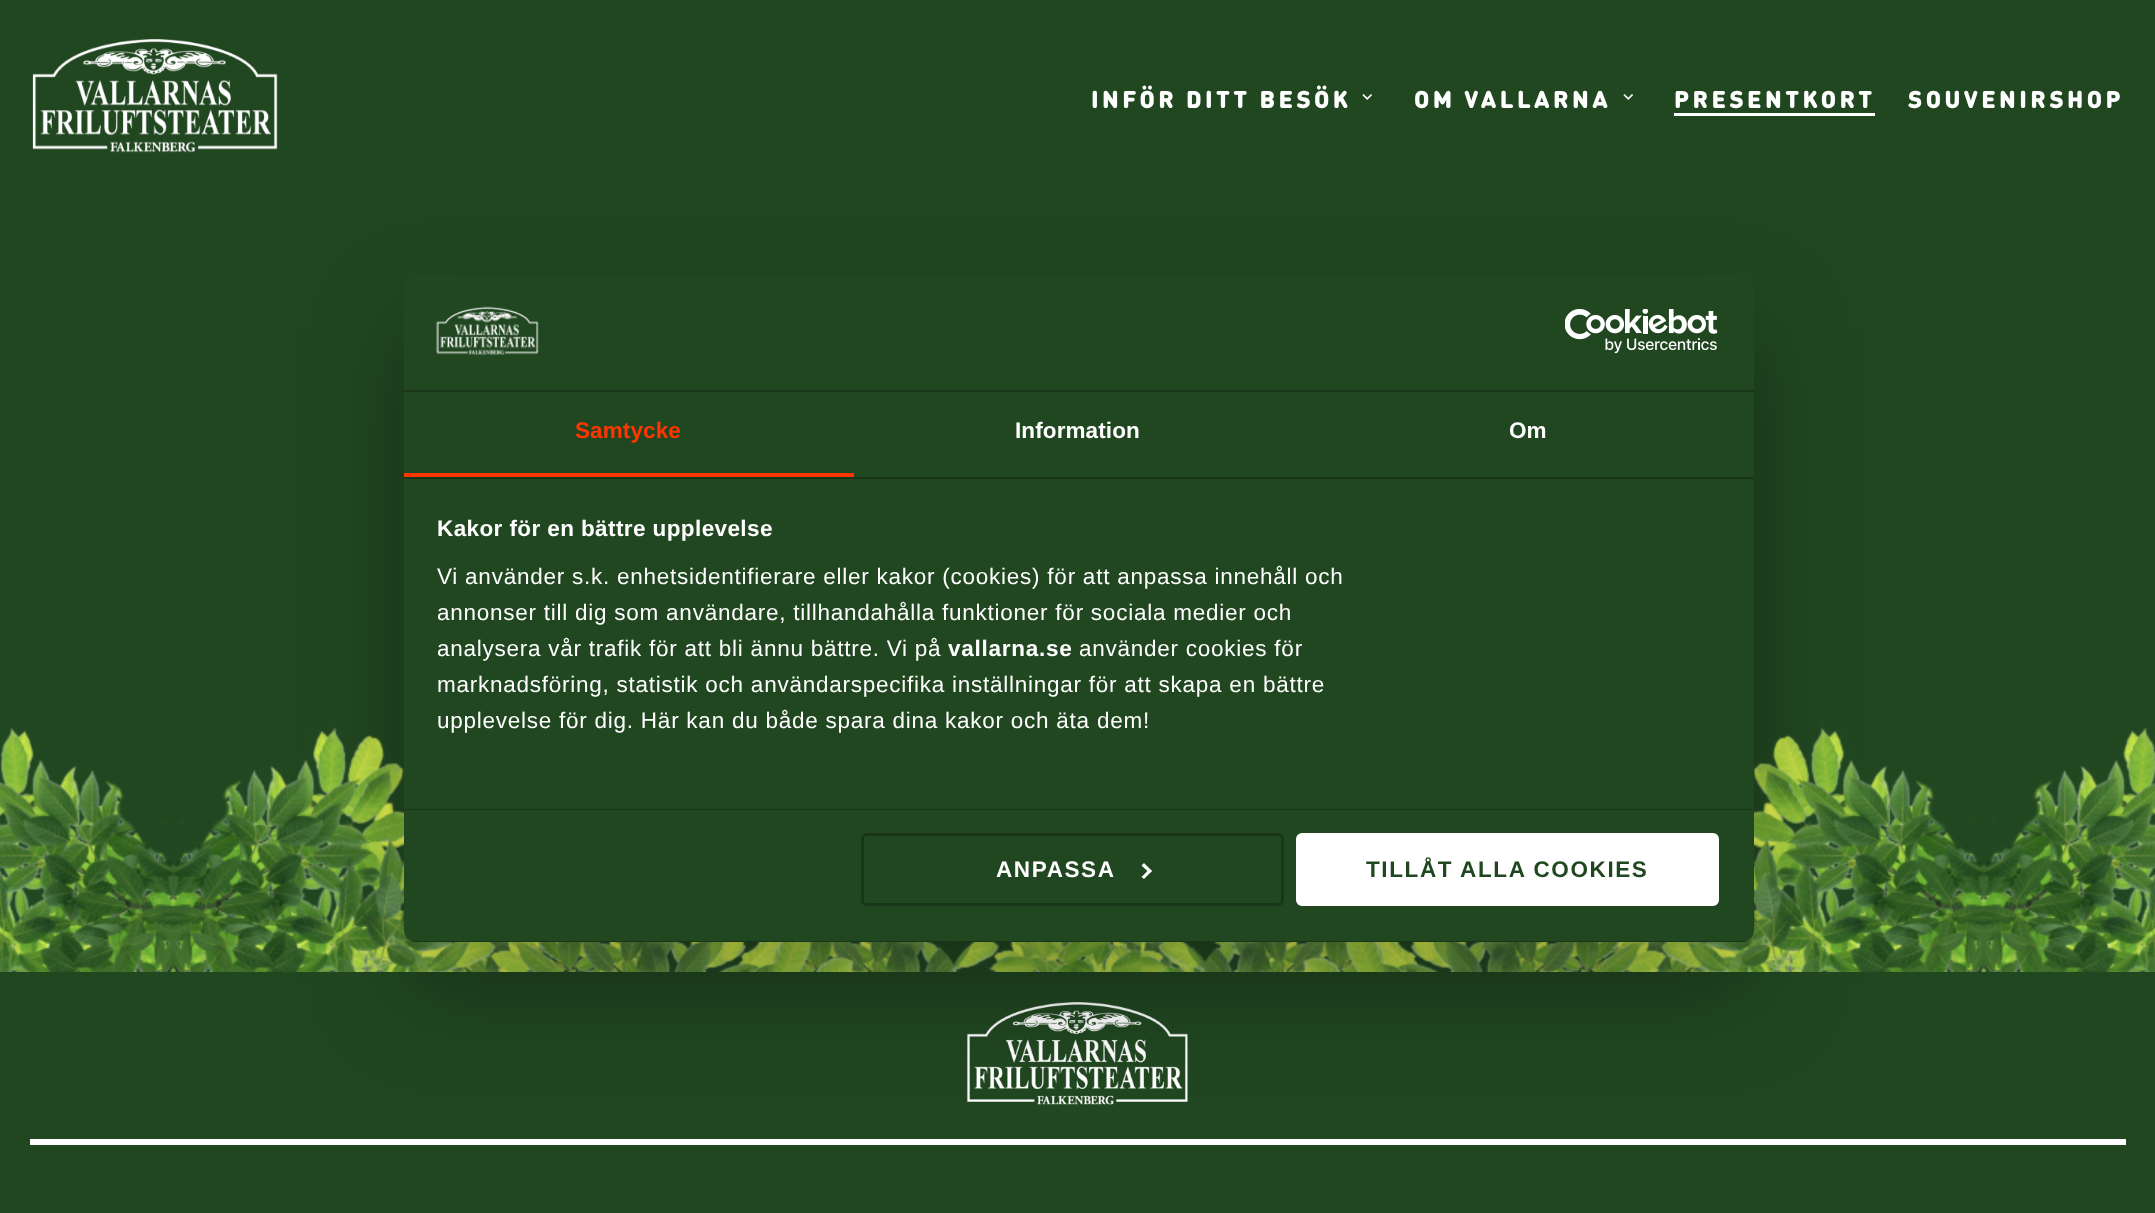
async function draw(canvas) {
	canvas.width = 2155;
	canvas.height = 1213;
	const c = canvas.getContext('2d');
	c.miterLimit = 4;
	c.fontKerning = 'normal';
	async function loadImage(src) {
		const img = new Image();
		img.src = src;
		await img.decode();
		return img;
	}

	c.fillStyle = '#214721';
	c.fillRect(0, 0, 2155, 1213);
	c.drawImage(await loadImage('img1.png'), 32, 39, 246, 114);
	c.letterSpacing = '3.4px';
	c.font = '900 24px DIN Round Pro';
	c.fillStyle = '#fff';
	c.fillText('INFÖR DITT BESÖK', 1091, 108);
	c.drawImage(await loadImage('img2.png'), 1362, 94, 10, 6);
	c.fillText('OM VALLARNA', 1414, 108);
	c.drawImage(await loadImage('img2.png'), 1623, 94, 10, 6);
	c.fillText('PRESENTKORT', 1674, 108);
	c.fillRect(1674, 113, 201, 3);
	c.fillText('SOUVENIRSHOP', 1908, 108);
	c.drawImage(await loadImage('img5.png'), 0, 727, 2155, 245);
	c.fillRect(30, 1139, 2096, 6);
	c.drawImage(await loadImage('img6.png'), 966, 1002, 222, 103);
	c.fillStyle = '#0000004d';
	c.filter = 'blur(51px)';
	c.beginPath();
	c.roundRect(404, 323, 1350, 667, 12);
	c.fill();
	c.filter = 'none';
	c.fillStyle = '#214721';
	c.beginPath();
	c.roundRect(404, 275, 1350, 667, 12);
	c.fill();
	c.fillStyle = '#193619';
	c.fillRect(404, 390, 1350, 2);
	c.drawImage(await loadImage('img3.png'), 436, 306, 103, 49);
	c.drawImage(await loadImage('img4.png'), 1565, 309, 153, 45);
	c.fillRect(404, 477, 1350, 2);
	c.fillStyle = '#ff3600';
	c.fillRect(404, 473, 450, 4);
	c.letterSpacing = '0.1px';
	c.font = 'bold 22.5px Liberation Sans';
	c.fillText('Samtycke', 575, 438);
	c.fillStyle = '#fff';
	c.fillText('Information', 1015, 438);
	c.fillText('Om', 1509, 438);
	c.fillStyle = '#193619';
	c.fillRect(404, 809, 1350, 1);
	c.letterSpacing = '0.4px';
	c.fillStyle = '#fff';
	c.fillText('Kakor för en bättre upplevelse', 437, 536);
	c.letterSpacing = '0.75px';
	c.font = '22.5px Liberation Sans';
	for (const [text, x, y] of [
		['Vi använder s.k. enhetsidentifierare eller kakor (cookies) för att anpassa innehåll och', 437, 584],
		['annonser till dig som användare, tillhandahålla funktioner för sociala medier och', 437, 620],
		['analysera vår trafik för att bli ännu bättre. Vi på', 437, 656],
	]) {
		c.fillText(text, x, y);
	}
	c.font = 'bold 22.5px Liberation Sans';
	c.fillText('vallarna.se', 948, 656);
	c.font = '22.5px Liberation Sans';
	for (const [text, x, y] of [
		['använder cookies för', 1079, 656],
		['marknadsföring, statistik och användarspecifika inställningar för att skapa en bättre', 437, 692],
		['upplevelse för dig. Här kan du både spara dina kakor och äta dem!', 437, 728],
	]) {
		c.fillText(text, x, y);
	}
	c.save();
	c.beginPath();
	c.roundRect(404, 275, 1350, 667, 12);
	c.clip();
	c.fillStyle = '#193619';
	c.fillRect(404, 941, 1350, 1);
	c.restore();
	c.beginPath();
	c.roundRect(862.5, 834.5, 420, 70, 4.5);
	c.strokeStyle = '#193619';
	c.lineWidth = 3;
	c.stroke();
	c.letterSpacing = '1.6px';
	c.font = 'bold 22.5px Liberation Sans';
	c.fillText('ANPASSA', 996, 877);
	c.beginPath();
	c.moveTo(1144, 863);
	c.lineTo(1152, 871);
	c.lineTo(1149.5, 873);
	c.lineTo(1141.5, 865.5);
	c.closePath();
	c.fill();
	c.beginPath();
	c.moveTo(1149.5, 869);
	c.lineTo(1152, 871);
	c.lineTo(1144, 879);
	c.lineTo(1141.5, 877);
	c.closePath();
	c.fill();
	c.beginPath();
	c.roundRect(1297.5, 834.5, 420, 70, 4.5);
	c.fill();
	c.strokeStyle = '#fff';
	c.stroke();
	c.fillStyle = '#214721';
	c.fillText('TILLÅT ALLA COOKIES', 1366, 877);
}

draw(document.querySelector('canvas'));
